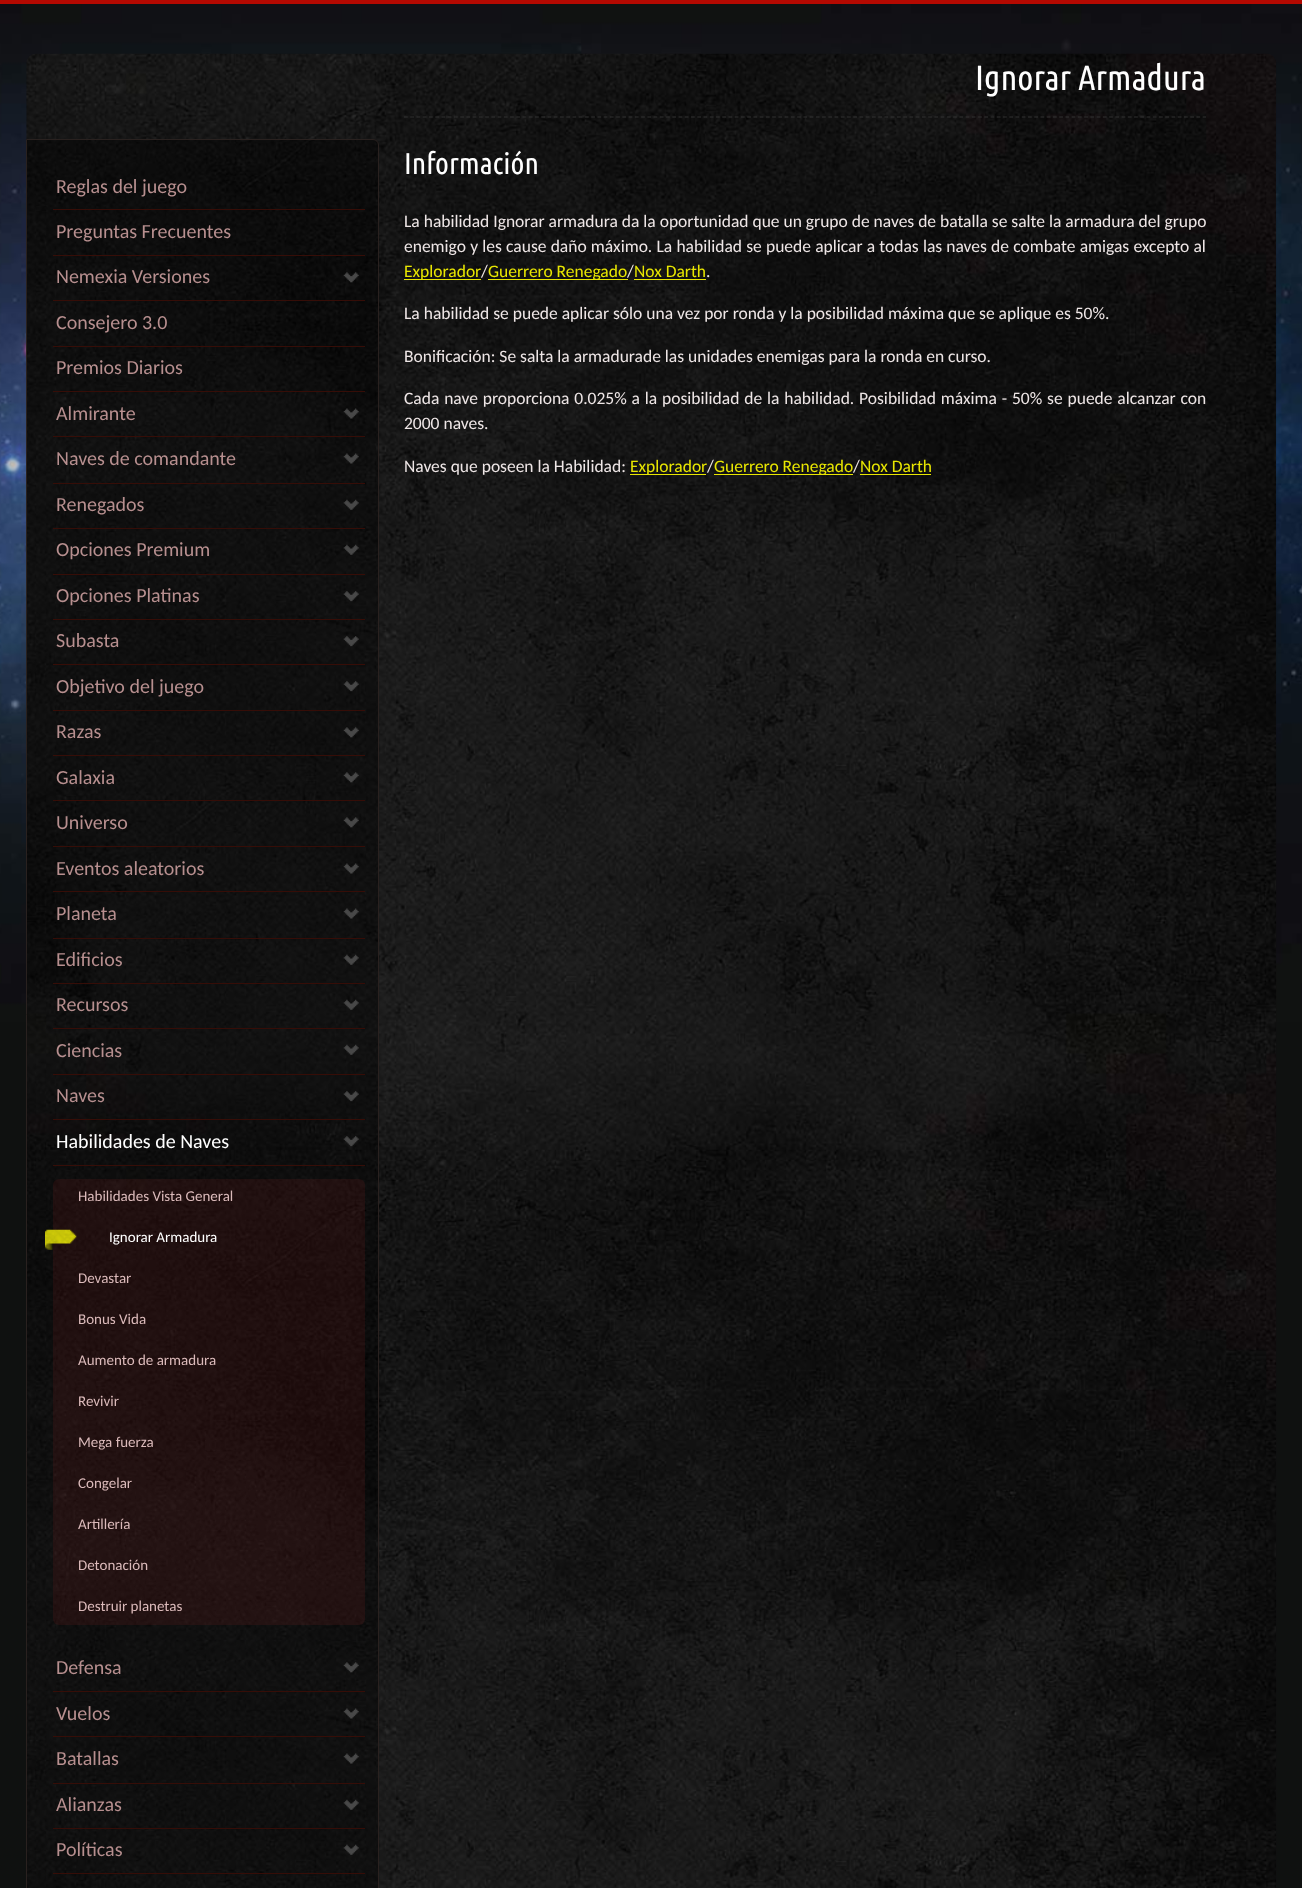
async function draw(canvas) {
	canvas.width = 1302;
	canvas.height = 1888;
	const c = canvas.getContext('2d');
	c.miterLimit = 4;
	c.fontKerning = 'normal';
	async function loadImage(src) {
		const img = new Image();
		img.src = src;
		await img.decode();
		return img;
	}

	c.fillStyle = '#0f1110';
	c.fillRect(0, 0, 1302, 1888);
	c.drawImage(await loadImage('img1.png'), 0, 4, 1302, 1018);
	c.fillStyle = '#b40901';
	c.fillRect(0, 0, 1302, 4);
	c.drawImage(await loadImage('img2.png'), 26, 53, 1251, 1835);
	c.fillStyle = '#00000066';
	c.beginPath();
	c.moveTo(26.5, 139.5);
	c.lineTo(373, 139.5);
	c.bezierCurveTo(376, 139.5, 378.5, 142, 378.5, 145);
	c.lineTo(378.5, 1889);
	c.bezierCurveTo(378.5, 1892, 376, 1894.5, 373, 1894.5);
	c.lineTo(26.5, 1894.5);
	c.closePath();
	c.fill();
	c.strokeStyle = '#29211f';
	c.stroke();
	c.fillStyle = '#360d07';
	c.fillRect(53, 209, 312, 1);
	c.font = '20px Carlito';
	c.fillStyle = '#b78f8f';
	c.fillText('Reglas del juego', 56, 193);
	c.fillStyle = '#360d07';
	c.fillRect(53, 255, 312, 1);
	c.fillStyle = '#b78f8f';
	c.fillText('Preguntas Frecuentes', 56, 238);
	c.fillStyle = '#360d07';
	c.fillRect(53, 300, 312, 1);
	c.fillStyle = '#b78f8f';
	c.fillText('Nemexia Versiones', 56, 283);
	c.drawImage(await loadImage('img3.png'), 343, 272, 16, 11);
	c.fillStyle = '#360d07';
	c.fillRect(53, 346, 312, 1);
	c.fillStyle = '#b78f8f';
	c.fillText('Consejero 3.0', 56, 329);
	c.fillStyle = '#360d07';
	c.fillRect(53, 391, 312, 1);
	c.fillStyle = '#b78f8f';
	c.fillText('Premios Diarios', 56, 374);
	c.fillStyle = '#360d07';
	c.fillRect(53, 436, 312, 1);
	c.fillStyle = '#b78f8f';
	c.fillText('Almirante', 56, 420);
	c.drawImage(await loadImage('img4.png'), 343, 408, 16, 11);
	c.fillStyle = '#360d07';
	c.fillRect(53, 483, 312, 1);
	c.fillStyle = '#b78f8f';
	c.fillText('Naves de comandante', 56, 465);
	c.drawImage(await loadImage('img5.png'), 343, 453, 16, 11);
	c.fillStyle = '#360d07';
	c.fillRect(53, 528, 312, 1);
	c.fillStyle = '#b78f8f';
	c.fillText('Renegados', 56, 511);
	c.drawImage(await loadImage('img6.png'), 343, 499, 16, 11);
	c.fillStyle = '#360d07';
	c.fillRect(53, 574, 312, 1);
	c.fillStyle = '#b78f8f';
	c.fillText('Opciones Premium', 56, 556);
	c.drawImage(await loadImage('img7.png'), 343, 544, 16, 11);
	c.fillStyle = '#360d07';
	c.fillRect(53, 619, 312, 1);
	c.fillStyle = '#b78f8f';
	c.fillText('Opciones Platinas', 56, 602);
	c.drawImage(await loadImage('img8.png'), 343, 591, 16, 11);
	c.fillStyle = '#360d07';
	c.fillRect(53, 664, 312, 1);
	c.fillStyle = '#b78f8f';
	c.fillText('Subasta', 56, 647);
	c.drawImage(await loadImage('img9.png'), 343, 636, 16, 11);
	c.fillStyle = '#360d07';
	c.fillRect(53, 710, 312, 1);
	c.fillStyle = '#b78f8f';
	c.fillText('Objetivo del juego', 56, 693);
	c.drawImage(await loadImage('img10.png'), 343, 681, 16, 11);
	c.fillStyle = '#360d07';
	c.fillRect(53, 755, 312, 1);
	c.fillStyle = '#b78f8f';
	c.fillText('Razas', 56, 738);
	c.drawImage(await loadImage('img11.png'), 343, 727, 16, 11);
	c.fillStyle = '#360d07';
	c.fillRect(53, 800, 312, 1);
	c.fillStyle = '#b78f8f';
	c.fillText('Galaxia', 56, 784);
	c.drawImage(await loadImage('img12.png'), 343, 772, 16, 11);
	c.fillStyle = '#360d07';
	c.fillRect(53, 846, 312, 1);
	c.fillStyle = '#b78f8f';
	c.fillText('Universo', 56, 829);
	c.drawImage(await loadImage('img13.png'), 343, 817, 16, 11);
	c.fillStyle = '#360d07';
	c.fillRect(53, 891, 312, 1);
	c.fillStyle = '#b78f8f';
	c.fillText('Eventos aleatorios', 56, 875);
	c.drawImage(await loadImage('img14.png'), 343, 863, 16, 11);
	c.fillStyle = '#360d07';
	c.fillRect(53, 938, 312, 1);
	c.fillStyle = '#b78f8f';
	c.fillText('Planeta', 56, 920);
	c.drawImage(await loadImage('img15.png'), 343, 908, 16, 11);
	c.fillStyle = '#360d07';
	c.fillRect(53, 983, 312, 1);
	c.fillStyle = '#b78f8f';
	c.fillText('Edificios', 56, 966);
	c.drawImage(await loadImage('img16.png'), 343, 954, 16, 11);
	c.fillStyle = '#360d07';
	c.fillRect(53, 1028, 312, 1);
	c.fillStyle = '#b78f8f';
	c.fillText('Recursos', 56, 1011);
	c.drawImage(await loadImage('img17.png'), 343, 999, 16, 11);
	c.fillStyle = '#360d07';
	c.fillRect(53, 1074, 312, 1);
	c.fillStyle = '#b78f8f';
	c.fillText('Ciencias', 56, 1057);
	c.drawImage(await loadImage('img18.png'), 343, 1044, 16, 11);
	c.fillStyle = '#360d07';
	c.fillRect(53, 1119, 312, 1);
	c.fillStyle = '#b78f8f';
	c.fillText('Naves', 56, 1102);
	c.drawImage(await loadImage('img19.png'), 343, 1091, 16, 11);
	c.fillStyle = '#360d07';
	c.fillRect(53, 1165, 312, 1);
	c.fillStyle = '#fff';
	c.fillText('Habilidades de Naves', 56, 1148);
	c.drawImage(await loadImage('img20.png'), 343, 1136, 16, 11);
	c.fillStyle = '#a7252521';
	c.beginPath();
	c.roundRect(53, 1179, 312, 446, 6);
	c.fill();
	c.font = '15px Carlito';
	c.fillStyle = '#dbbaba';
	c.fillText('Habilidades Vista General', 78, 1201);
	c.drawImage(await loadImage('img21.png'), 45, 1229, 32, 21);
	c.fillStyle = '#fff';
	c.fillText('Ignorar Armadura', 109, 1242);
	c.fillStyle = '#dbbaba';
	for (const [text, x, y] of [
		['Devastar', 78, 1283],
		['Bonus Vida', 78, 1324],
		['Aumento de armadura', 78, 1365],
		['Revivir', 78, 1406],
		['Mega fuerza', 78, 1447],
		['Congelar', 78, 1488],
		['Artillería', 78, 1529],
		['Detonación', 78, 1570],
		['Destruir planetas', 78, 1611],
	]) {
		c.fillText(text, x, y);
	}
	c.fillStyle = '#360d07';
	c.fillRect(53, 1691, 312, 1);
	c.font = '20px Carlito';
	c.fillStyle = '#b78f8f';
	c.fillText('Defensa', 56, 1674);
	c.drawImage(await loadImage('img22.png'), 343, 1662, 16, 11);
	c.fillStyle = '#360d07';
	c.fillRect(53, 1736, 312, 1);
	c.fillStyle = '#b78f8f';
	c.fillText('Vuelos', 56, 1720);
	c.drawImage(await loadImage('img23.png'), 343, 1708, 16, 11);
	c.fillStyle = '#360d07';
	c.fillRect(53, 1783, 312, 1);
	c.fillStyle = '#b78f8f';
	c.fillText('Batallas', 56, 1765);
	c.drawImage(await loadImage('img24.png'), 343, 1753, 16, 11);
	c.fillStyle = '#360d07';
	c.fillRect(53, 1828, 312, 1);
	c.fillStyle = '#b78f8f';
	c.fillText('Alianzas', 56, 1811);
	c.drawImage(await loadImage('img25.png'), 343, 1799, 16, 11);
	c.fillStyle = '#360d07';
	c.fillRect(53, 1873, 312, 1);
	c.fillStyle = '#b78f8f';
	c.fillText('Políticas', 56, 1856);
	c.drawImage(await loadImage('img26.png'), 343, 1844, 16, 11);
	c.beginPath();
	c.moveTo(404, 117);
	c.lineTo(1206, 117);
	c.strokeStyle = '#333';
	c.lineWidth = 1.2;
	c.setLineDash([3.75, 2.49]);
	c.stroke();
	c.font = '35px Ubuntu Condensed';
	c.fillStyle = '#fff';
	c.fillText('Ignorar Armadura', 975, 90);
	c.font = '30px Ubuntu Condensed';
	c.fillText('Información', 404, 174);
	c.font = '17.5px Carlito';
	c.fillStyle = '#eee6e6';
	c.fillText('La habilidad Ignorar armadura da la oportunidad que un grupo de naves de batalla se salte la armadura del grupo', 404, 227);
	c.wordSpacing = '0.25px';
	c.fillText('enemigo y les cause daño máximo. La habilidad se puede aplicar a todas las naves de combate amigas excepto al', 404, 252);
	c.fillStyle = '#e8e601';
	c.fillRect(404, 279, 77, 1);
	c.wordSpacing = '0px';
	c.fillText('Explorador', 404, 277);
	c.fillStyle = '#eee6e6';
	c.fillText('/', 481, 277);
	c.fillStyle = '#e8e601';
	c.fillRect(488, 279, 140, 1);
	c.fillText('Guerrero Renegado', 488, 277);
	c.fillStyle = '#eee6e6';
	c.fillText('/', 627, 277);
	c.fillStyle = '#e8e601';
	c.fillText('Nox Darth', 634, 277);
	c.fillRect(634, 279, 72, 1);
	c.fillStyle = '#eee6e6';
	for (const [text, x, y] of [
		['.', 706, 277],
		['La habilidad se puede aplicar sólo una vez por ronda y la posibilidad máxima que se aplique es 50%.', 404, 319],
		['Bonificación: Se salta la armadurade las unidades enemigas para la ronda en curso.', 404, 362],
	]) {
		c.fillText(text, x, y);
	}
	c.wordSpacing = '0.9px';
	c.fillText('Cada nave proporciona 0.025% a la posibilidad de la habilidad. Posibilidad máxima - 50% se puede alcanzar con', 404, 404);
	c.wordSpacing = '0px';
	c.fillText('2000 naves.', 404, 429);
	c.fillText('Naves que poseen la Habilidad:', 404, 472);
	c.fillStyle = '#e8e601';
	c.fillRect(630, 474, 76, 1);
	c.fillText('Explorador', 630, 472);
	c.fillStyle = '#eee6e6';
	c.fillText('/', 707, 472);
	c.fillStyle = '#e8e601';
	c.fillRect(714, 474, 139, 1);
	c.fillText('Guerrero Renegado', 714, 472);
	c.fillStyle = '#eee6e6';
	c.fillText('/', 853, 472);
	c.fillStyle = '#e8e601';
	c.fillText('Nox Darth', 860, 472);
	c.fillRect(860, 474, 71, 1);
}

draw(document.querySelector('canvas'));
